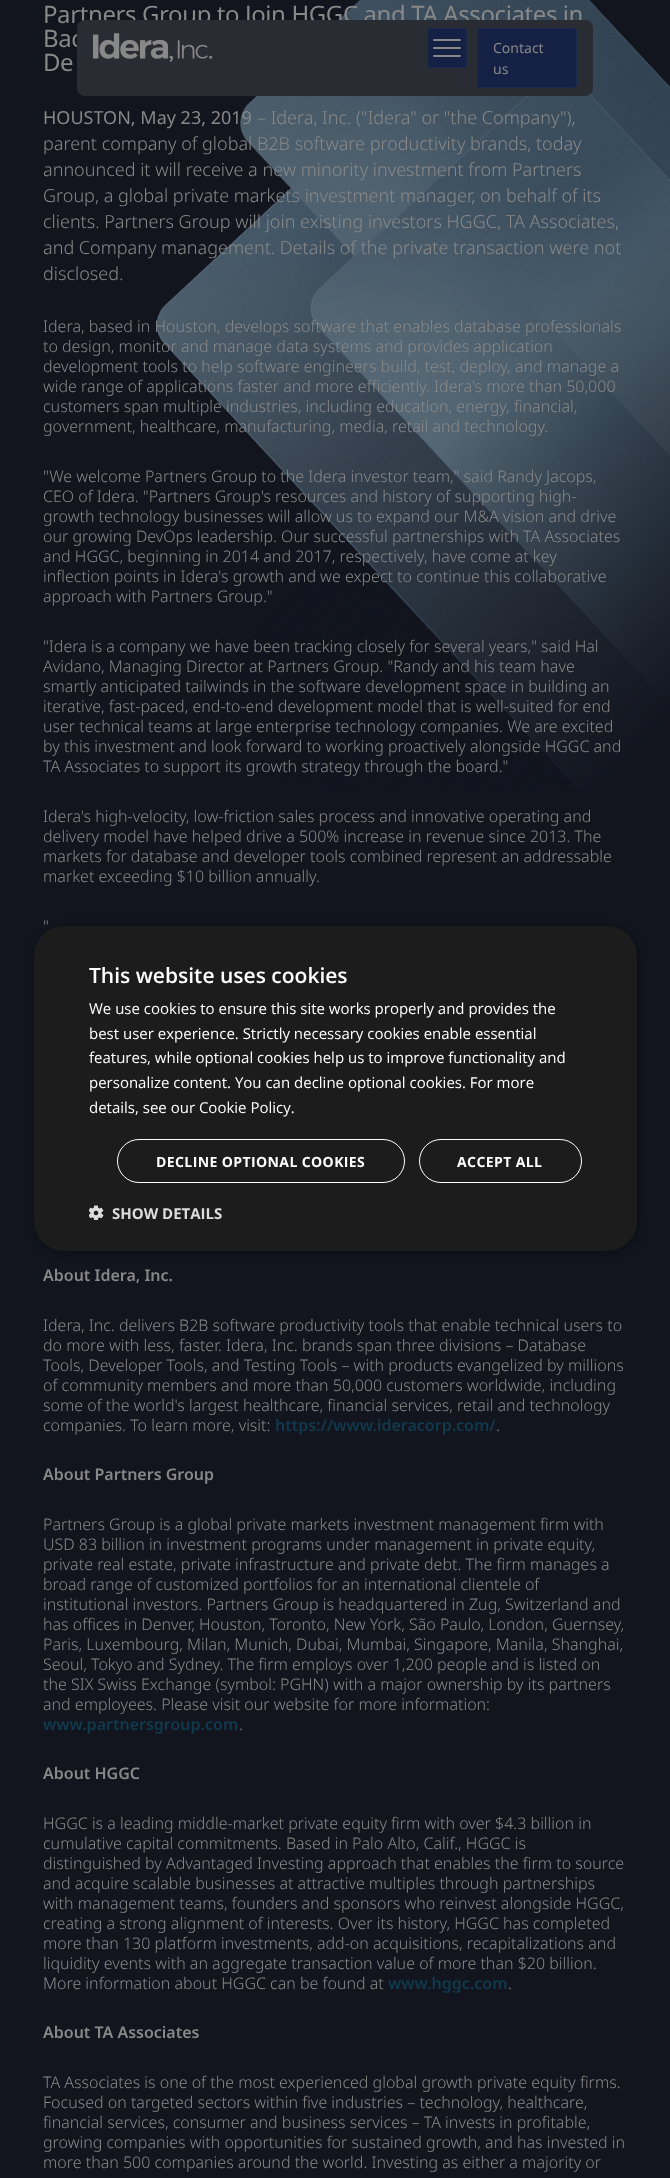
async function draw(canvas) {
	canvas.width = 670;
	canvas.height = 2178;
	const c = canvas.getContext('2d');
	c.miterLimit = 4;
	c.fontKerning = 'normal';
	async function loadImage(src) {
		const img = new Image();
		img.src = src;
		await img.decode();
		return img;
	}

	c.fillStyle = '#12151e';
	c.fillRect(0, 0, 670, 2178);
	c.drawImage(await loadImage('img1.png'), 156, 0, 514, 791);
	c.letterSpacing = '-0.4px';
	c.font = '24px Noto Sans';
	c.fillStyle = '#888';
	for (const [text, x, y] of [
		['Partners Group to Join HGGC and TA Associates in', 43, 23],
		['Bac', 43, 47],
		['De', 43, 71],
	]) {
		c.fillText(text, x, y);
	}
	c.letterSpacing = '0px';
	c.font = '18px Noto Sans';
	c.fillText('HOUSTON, May 23, 2019', 43, 124);
	c.font = '300 18px Noto Sans';
	for (const [text, x, y] of [
		['– Idera, Inc. ("Idera" or "the Company"),', 257, 124],
		['parent company of global B2B software productivity brands, today', 43, 150],
		['announced it will receive a new minority investment from Partners', 43, 176],
		['Group, a global private markets investment manager, on behalf of its', 43, 202],
		['clients. Partners Group will join existing investors HGGC, TA Associates,', 43, 228],
		['and Company management. Details of the private transaction were not', 43, 254],
		['disclosed.', 43, 280],
	]) {
		c.fillText(text, x, y);
	}
	c.font = '300 16px Noto Sans';
	for (const [text, x, y] of [
		['Idera, based in Houston, develops software that enables database professionals', 43, 332],
		['to design, monitor and manage data systems and provides application', 43, 352],
		['development tools to help software engineers build, test, deploy, and manage a', 43, 372],
		['wide range of applications faster and more efficiently. Idera\'s more than 50,000', 43, 392],
		['customers span multiple industries, including education, energy, financial,', 43, 412],
		['government, healthcare, manufacturing, media, retail and technology.', 43, 432],
		['"We welcome Partners Group to the Idera investor team," said Randy Jacops,', 43, 482],
		['CEO of Idera. "Partners Group\'s resources and history of supporting high-', 43, 502],
		['growth technology businesses will allow us to expand our M&A vision and drive', 43, 522],
		['our growing DevOps leadership. Our successful partnerships with TA Associates', 43, 542],
		['and HGGC, beginning in 2014 and 2017, respectively, have come at key', 43, 562],
		['inflection points in Idera\'s growth and we expect to continue this collaborative', 43, 582],
		['approach with Partners Group."', 43, 602],
		['"Idera is a company we have been tracking closely for several years," said Hal', 43, 652],
		['Avidano, Managing Director at Partners Group. "Randy and his team have', 43, 672],
		['smartly anticipated tailwinds in the software development space in building an', 43, 692],
		['iterative, fast-paced, end-to-end development model that is well-suited for end', 43, 712],
		['user technical teams at large enterprise technology companies. We are excited', 43, 732],
		['by this investment and look forward to working proactively alongside HGGC and', 43, 752],
		['TA Associates to support its growth strategy through the board."', 43, 772],
		['Idera\'s high-velocity, low-friction sales process and innovative operating and', 43, 822],
		['delivery model have helped drive a 500% increase in revenue since 2013. The', 43, 842],
		['markets for database and developer tools combined represent an addressable', 43, 862],
		['market exceeding $10 billion annually.', 43, 882],
		['"', 43, 932],
	]) {
		c.fillText(text, x, y);
	}
	c.font = '600 16px Noto Sans';
	c.fillText('About Idera, Inc.', 43, 1281);
	c.font = '300 16px Noto Sans';
	for (const [text, x, y] of [
		['Idera, Inc. delivers B2B software productivity tools that enable technical users to', 43, 1331],
		['do more with less, faster. Idera, Inc. brands span three divisions – Database', 43, 1351],
		['Tools, Developer Tools, and Testing Tools – with products evangelized by millions', 43, 1371],
		['of community members and more than 50,000 customers worldwide, including', 43, 1391],
		['some of the world\'s largest healthcare, financial services, retail and technology', 43, 1411],
		['companies. To learn more, visit:', 43, 1431],
	]) {
		c.fillText(text, x, y);
	}
	c.font = '600 16px Noto Sans';
	c.fillStyle = '#103a4e';
	c.fillText('https://www.ideracorp.com/', 275, 1431);
	c.font = '300 16px Noto Sans';
	c.fillStyle = '#888';
	c.fillText('.', 496, 1431);
	c.font = '600 16px Noto Sans';
	c.fillText('About Partners Group', 43, 1480);
	c.font = '300 16px Noto Sans';
	for (const [text, x, y] of [
		['Partners Group is a global private markets investment management firm with', 43, 1530],
		['USD 83 billion in investment programs under management in private equity,', 43, 1550],
		['private real estate, private infrastructure and private debt. The firm manages a', 43, 1570],
		['broad range of customized portfolios for an international clientele of', 43, 1590],
		['institutional investors. Partners Group is headquartered in Zug, Switzerland and', 43, 1610],
		['has offices in Denver, Houston, Toronto, New York, São Paulo, London, Guernsey,', 43, 1630],
		['Paris, Luxembourg, Milan, Munich, Dubai, Mumbai, Singapore, Manila, Shanghai,', 43, 1650],
		['Seoul, Tokyo and Sydney. The firm employs over 1,200 people and is listed on', 43, 1670],
		['the SIX Swiss Exchange (symbol: PGHN) with a major ownership by its partners', 43, 1690],
		['and employees. Please visit our website for more information:', 43, 1710],
	]) {
		c.fillText(text, x, y);
	}
	c.font = '600 16px Noto Sans';
	c.fillStyle = '#103a4e';
	c.fillText('www.partnersgroup.com', 43, 1730);
	c.font = '300 16px Noto Sans';
	c.fillStyle = '#888';
	c.fillText('.', 239, 1730);
	c.font = '600 16px Noto Sans';
	c.fillText('About HGGC', 43, 1779);
	c.font = '300 16px Noto Sans';
	for (const [text, x, y] of [
		['HGGC is a leading middle-market private equity firm with over $4.3 billion in', 43, 1829],
		['cumulative capital commitments. Based in Palo Alto, Calif., HGGC is', 43, 1849],
		['distinguished by Advantaged Investing approach that enables the firm to source', 43, 1869],
		['and acquire scalable businesses at attractive multiples through partnerships', 43, 1889],
		['with management teams, founders and sponsors who reinvest alongside HGGC,', 43, 1909],
		['creating a strong alignment of interests. Over its history, HGGC has completed', 43, 1929],
		['more than 130 platform investments, add-on acquisitions, recapitalizations and', 43, 1949],
		['liquidity events with an aggregate transaction value of more than $20 billion.', 43, 1969],
		['More information about HGGC can be found at', 43, 1989],
	]) {
		c.fillText(text, x, y);
	}
	c.font = '600 16px Noto Sans';
	c.fillStyle = '#103a4e';
	c.fillText('www.hggc.com', 388, 1989);
	c.font = '300 16px Noto Sans';
	c.fillStyle = '#888';
	c.fillText('.', 508, 1989);
	c.font = '600 16px Noto Sans';
	c.fillText('About TA Associates', 43, 2038);
	c.font = '300 16px Noto Sans';
	for (const [text, x, y] of [
		['TA Associates is one of the most experienced global growth private equity firms.', 43, 2088],
		['Focused on targeted sectors within five industries – technology, healthcare,', 43, 2108],
		['financial services, consumer and business services – TA invests in profitable,', 43, 2128],
		['growing companies with opportunities for sustained growth, and has invested in', 43, 2148],
		['more than 500 companies around the world. Investing as either a majority or', 43, 2168],
	]) {
		c.fillText(text, x, y);
	}
	c.fillStyle = '#2a2c33';
	c.beginPath();
	c.roundRect(77, 20, 516, 76, 8);
	c.fill();
	c.drawImage(await loadImage('img2.png'), 93, 33, 120, 29);
	c.fillStyle = '#142044';
	c.beginPath();
	c.roundRect(427, 28, 40, 40, 4);
	c.fill();
	c.beginPath();
	c.roundRect(427.5, 28.5, 39, 39, 3.5);
	c.strokeStyle = '#2b558833';
	c.stroke();
	c.fillStyle = '#888';
	c.beginPath();
	c.roundRect(433, 39, 28, 2, 1);
	c.fill();
	c.beginPath();
	c.roundRect(433, 47, 28, 2, 1);
	c.fill();
	c.beginPath();
	c.roundRect(433, 55, 28, 2, 1);
	c.fill();
	c.fillStyle = '#142044';
	c.beginPath();
	c.roundRect(477, 28, 100, 60, 4);
	c.fill();
	c.beginPath();
	c.roundRect(477.5, 28.5, 99, 59, 3.5);
	c.stroke();
	c.font = '14px Noto Sans';
	c.fillStyle = '#888';
	c.fillText('Contact', 493, 53);
	c.fillText('us', 493, 74);
	c.fillStyle = '#00000059';
	c.filter = 'blur(4px)';
	c.beginPath();
	c.roundRect(35, 928, 603, 325, 30);
	c.fill();
	c.filter = 'none';
	c.fillStyle = '#1c1c1c';
	c.beginPath();
	c.roundRect(34, 926, 603, 325, 30);
	c.fill();
	c.font = '600 21px Open Sans';
	c.fillStyle = '#fff';
	c.fillText('This website uses cookies', 89, 983);
	c.font = '15px Open Sans';
	for (const [text, x, y] of [
		['We use cookies to ensure this site works properly and provides the', 89, 1014],
		['best user experience. Strictly necessary cookies enable essential', 89, 1039],
		['features, while optional cookies help us to improve functionality and', 89, 1063],
		['personalize content. You can decline optional cookies. For more', 89, 1088],
		['details, see our Cookie Policy.', 89, 1113],
	]) {
		c.fillText(text, x, y);
	}
	c.beginPath();
	c.roundRect(117.5, 1139.5, 287, 43, 21.5);
	c.strokeStyle = '#fff';
	c.stroke();
	c.letterSpacing = '0.4px';
	c.font = 'bold 14px Open Sans';
	c.fillText('DECLINE OPTIONAL COOKIES', 156, 1167);
	c.beginPath();
	c.roundRect(419.5, 1139.5, 162, 43, 21.5);
	c.stroke();
	c.fillText('ACCEPT ALL', 457, 1167);
	c.drawImage(await loadImage('img3.png'), 89, 1205, 15, 15);
	c.letterSpacing = '0px';
	c.font = 'bold 15px Open Sans';
	c.fillStyle = '#ddd';
	c.fillText('SHOW DETAILS', 112, 1219);
}

draw(document.querySelector('canvas'));
